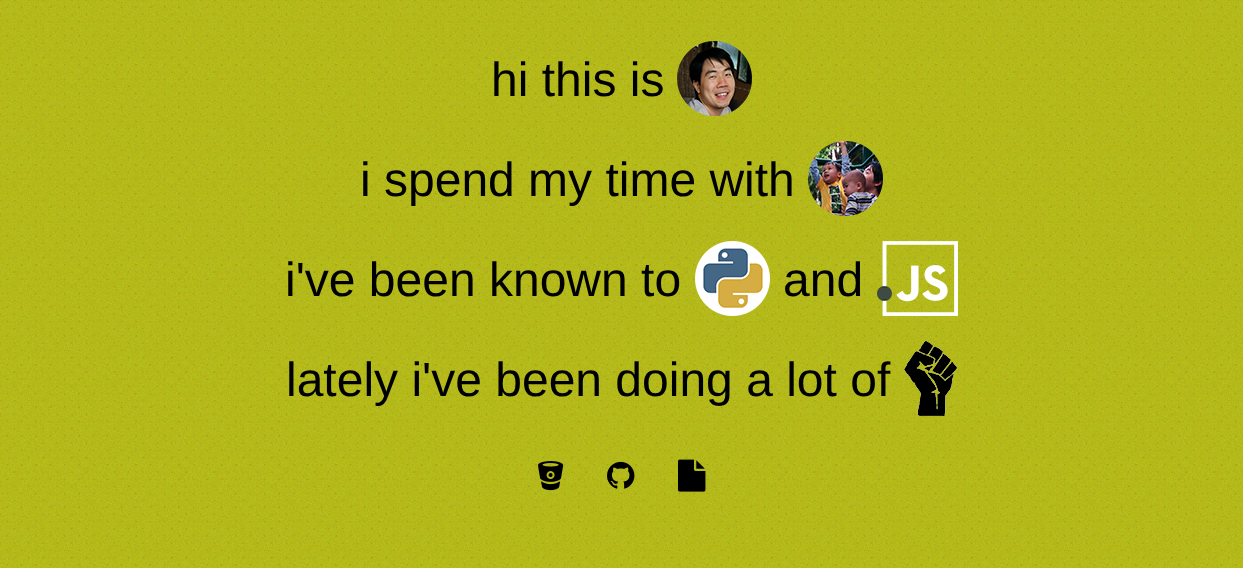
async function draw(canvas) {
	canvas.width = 1243;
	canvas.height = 568;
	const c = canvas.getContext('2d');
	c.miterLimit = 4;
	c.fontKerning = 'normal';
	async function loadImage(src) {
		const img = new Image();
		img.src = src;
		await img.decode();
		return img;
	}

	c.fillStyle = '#fff';
	c.fillRect(0, 0, 1243, 568);
	c.drawImage(await loadImage('img1.png'), 0, 0, 1243, 568);
	c.font = '48px Liberation Sans';
	c.fillStyle = '#000';
	c.fillText('hi this is', 491, 96);
	c.drawImage(await loadImage('img2.png'), 677, 41, 75, 75);
	c.fillText('i spend my time with', 360, 196);
	c.drawImage(await loadImage('img3.png'), 808, 141, 75, 75);
	c.fillText('i\'ve been known to', 285, 296);
	c.drawImage(await loadImage('img4.png'), 695, 241, 75, 75);
	c.fillText('and', 783, 296);
	c.drawImage(await loadImage('img5.png'), 877, 241, 81, 75);
	c.fillText('lately i\'ve been doing a lot of', 286, 396);
	c.drawImage(await loadImage('img6.png'), 904, 341, 53, 75);
	c.drawImage(await loadImage('img7.png'), 538, 461, 26, 30);
	c.drawImage(await loadImage('img8.png'), 607, 461, 28, 28);
	c.drawImage(await loadImage('img9.png'), 678, 459, 28, 33);
}

draw(document.querySelector('canvas'));
